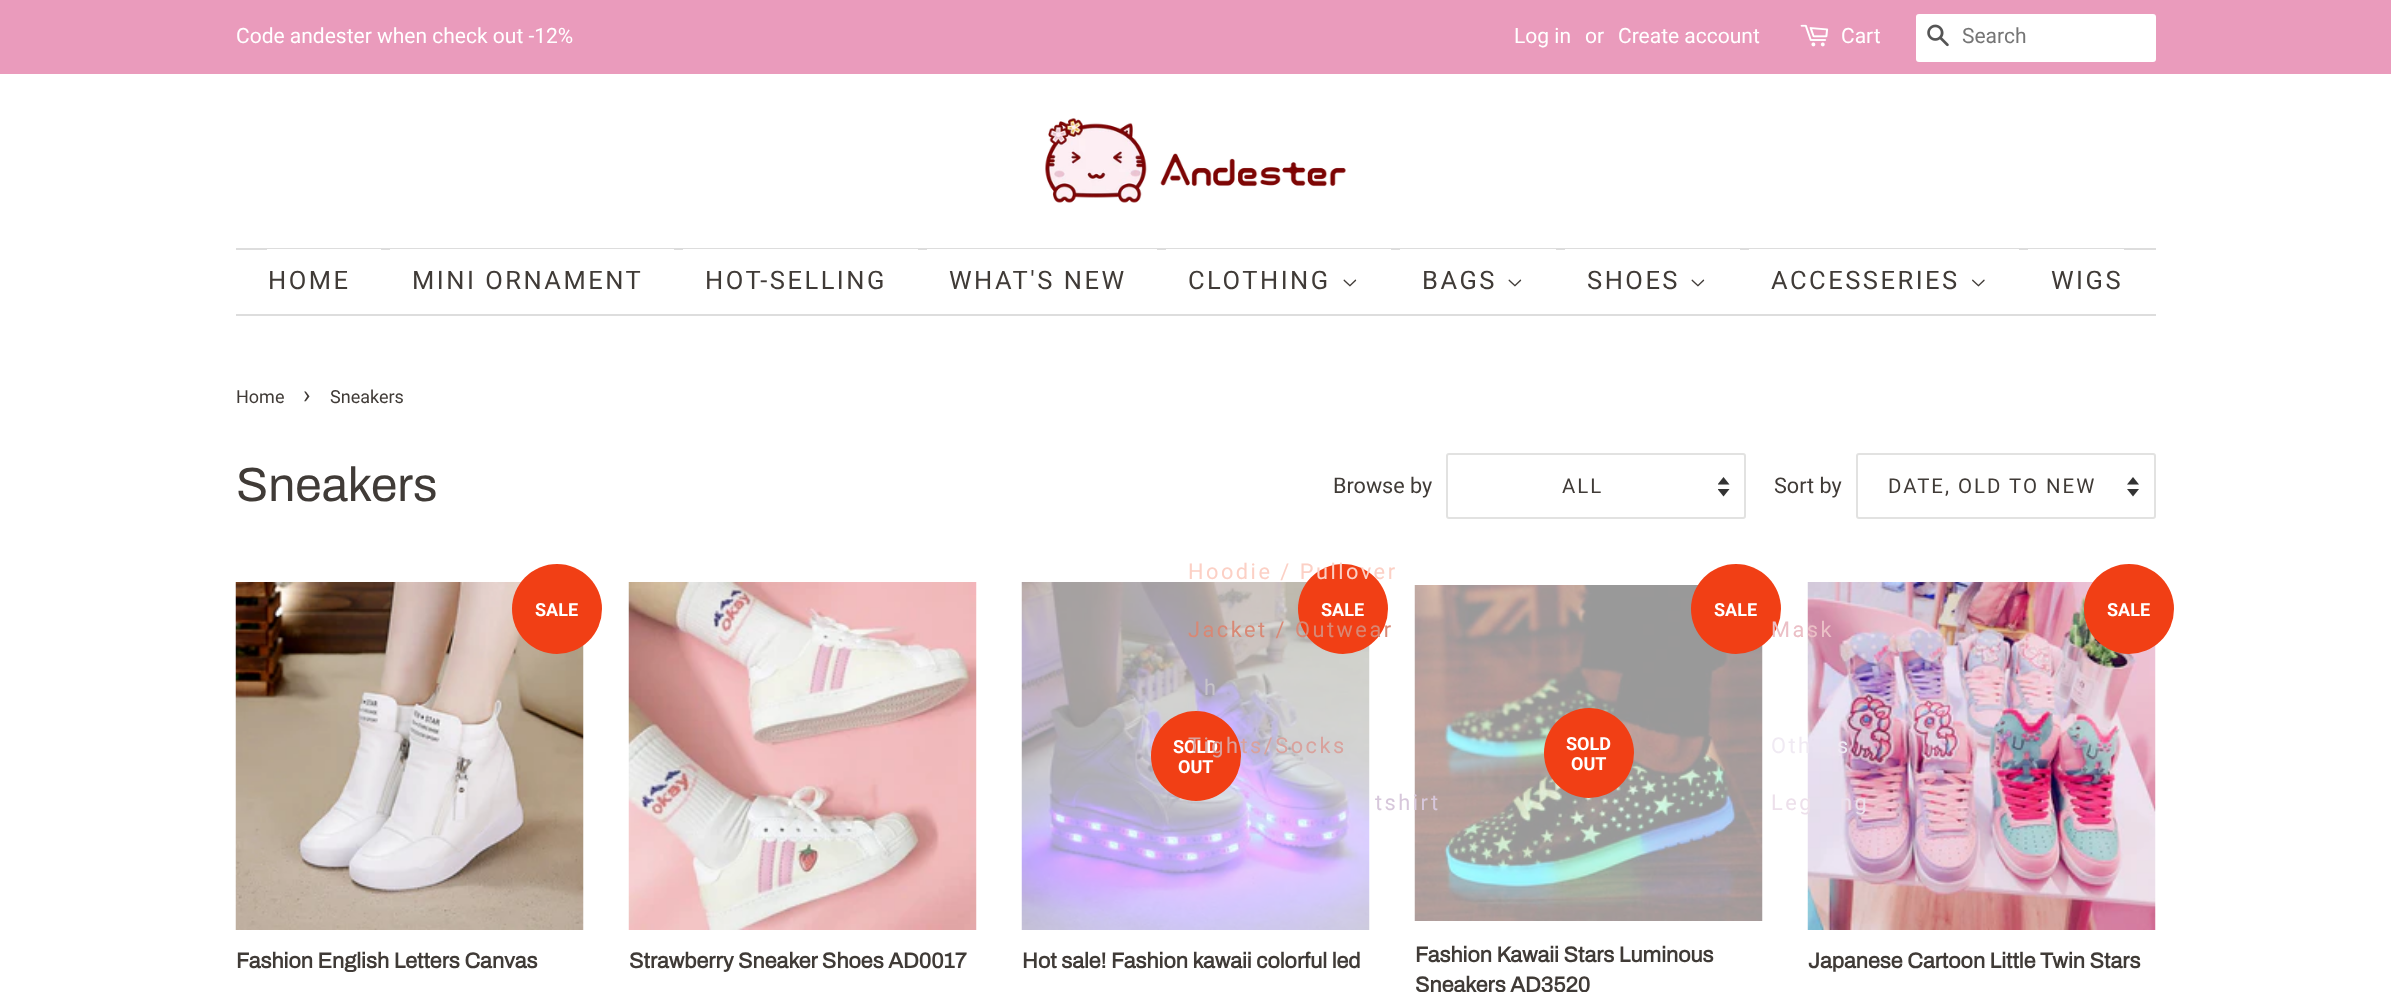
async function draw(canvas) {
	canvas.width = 2391;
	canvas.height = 992;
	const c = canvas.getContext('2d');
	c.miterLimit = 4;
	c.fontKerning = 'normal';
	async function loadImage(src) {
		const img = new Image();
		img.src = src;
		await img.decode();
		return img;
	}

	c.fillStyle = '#fff';
	c.fillRect(0, 0, 2391, 992);
	c.fillStyle = '#ea9bbc';
	c.fillRect(0, 0, 2391, 74);
	c.font = '21px Roboto';
	c.fillStyle = '#fff';
	for (const [text, x, y] of [
		['Code andester when check out -12%', 236, 43],
		['Log in', 1514, 43],
		['or', 1585, 43],
		['Create account', 1618, 43],
	]) {
		c.fillText(text, x, y);
	}
	c.drawImage(await loadImage('img1.png'), 1800, 24, 29, 23);
	c.fillText('Cart', 1841, 43);
	c.beginPath();
	c.roundRect(1916, 14, 240, 48, 3);
	c.fill();
	c.drawImage(await loadImage('img2.png'), 1927, 24, 22, 23);
	c.fillStyle = '#757575';
	c.fillText('Search', 1962, 43);
	c.drawImage(await loadImage('img3.png'), 1045, 118, 301, 85);
	for (const [x, y, w, h, color] of [
		[236, 248, 1920, 2, '#ddd'],
		[236, 314, 1920, 2, '#ddd'],
		[267, 249, 114, 1, '#fff'],
	]) {
		c.fillStyle = color;
		c.fillRect(x, y, w, h);
	}
	c.letterSpacing = '2.5px';
	c.font = '25.5px Roboto';
	c.fillStyle = '#403b37';
	c.fillText('HOME', 268, 289);
	c.fillStyle = '#fff';
	c.fillRect(390, 249, 284, 1);
	c.fillStyle = '#403b37';
	c.fillText('MINI ORNAMENT', 412, 289);
	c.fillStyle = '#fff';
	c.fillRect(683, 249, 235, 1);
	c.fillStyle = '#403b37';
	c.fillText('HOT-SELLING', 705, 289);
	c.fillStyle = '#fff';
	c.fillRect(927, 249, 230, 1);
	c.fillStyle = '#403b37';
	c.fillText('WHAT\'S NEW', 949, 289);
	c.fillStyle = '#fff';
	c.fillRect(1166, 249, 225, 1);
	c.fillStyle = '#403b37';
	c.fillText('CLOTHING', 1188, 289);
	c.drawImage(await loadImage('img4.png'), 1343, 279, 14, 8);
	c.drawImage(await loadImage('img10.png'), 1021, 582, 349, 348);
	c.fillStyle = '#f13f15';
	c.beginPath();
	c.arc(1343, 609, 45, 0, 2 * Math.PI);
	c.fill();
	c.font = '21.75px Roboto';
	c.fillStyle = '#fcd0c5';
	c.fillText('Hoodie / Pullover', 1188, 579);
	c.fillStyle = '#d88875';
	c.fillText('Jacket / Outwear', 1188, 637);
	c.fillStyle = '#c7c4ca';
	c.fillText('h', 1204, 695);
	c.fillStyle = '#f13f15';
	c.beginPath();
	c.arc(1196, 756, 45, 0, 2 * Math.PI);
	c.fill();
	c.letterSpacing = '0px';
	c.font = 'bold 18px Roboto';
	c.fillStyle = '#fff';
	c.fillText('SOLD', 1173, 753);
	c.letterSpacing = '2.5px';
	c.font = '21.75px Roboto';
	c.fillStyle = '#d9a29d';
	c.fillText('Tights/Socks', 1188, 753);
	c.drawImage(await loadImage('img11.png'), 1414, 585, 349, 336);
	c.fillStyle = '#d7c7db';
	c.fillText('tshirt', 1375, 810);
	c.fillStyle = '#fff';
	c.fillRect(1400, 249, 156, 1);
	c.font = '25.5px Roboto';
	c.fillStyle = '#403b37';
	c.fillText('BAGS', 1422, 289);
	c.drawImage(await loadImage('img4.png'), 1508, 279, 14, 8);
	c.fillStyle = '#fff';
	c.fillRect(1565, 249, 175, 1);
	c.fillStyle = '#403b37';
	c.fillText('SHOES', 1587, 289);
	c.drawImage(await loadImage('img4.png'), 1691, 279, 14, 8);
	c.fillStyle = '#fff';
	c.fillRect(1749, 249, 270, 1);
	c.fillStyle = '#403b37';
	c.fillText('ACCESSERIES', 1771, 289);
	c.drawImage(await loadImage('img5.png'), 1972, 279, 13, 8);
	c.fillStyle = '#f13f15';
	c.beginPath();
	c.arc(1736, 609, 45, 0, 2 * Math.PI);
	c.fill();
	c.drawImage(await loadImage('img12.png'), 1807, 582, 349, 348);
	c.font = '21.75px Roboto';
	c.fillStyle = '#ebbfc6';
	c.fillText('Mask', 1771, 637);
	c.fillStyle = '#f0eaf3';
	c.fillText('Oth', 1771, 753);
	c.fillText('s', 1837, 753);
	c.fillStyle = '#ede0eb';
	c.fillText('Leg', 1771, 810);
	c.fillText('ng', 1840, 810);
	c.fillStyle = '#fff';
	c.fillRect(2028, 249, 96, 1);
	c.font = '25.5px Roboto';
	c.fillStyle = '#403b37';
	c.fillText('WIGS', 2051, 289);
	c.letterSpacing = '0px';
	c.font = '18px Roboto';
	c.fillText('Home', 236, 403);
	c.font = '25px Roboto';
	c.fillText('›', 303, 403);
	c.font = '18px Roboto';
	c.fillText('Sneakers', 330, 403);
	c.font = '48px Archivo';
	c.fillText('Sneakers', 236, 501);
	c.font = '21.6px Roboto';
	c.fillText('Browse by', 1333, 493);
	c.drawImage(await loadImage('img6.png'), 1718, 477, 12, 20);
	c.beginPath();
	c.roundRect(1447, 454, 298, 64, 2);
	c.strokeStyle = '#e2e2e1';
	c.lineWidth = 2;
	c.stroke();
	c.letterSpacing = '2px';
	c.font = '20.4px Roboto';
	c.fillText('ALL', 1562, 493);
	c.letterSpacing = '0px';
	c.font = '21.6px Roboto';
	c.fillText('Sort by', 1774, 493);
	c.drawImage(await loadImage('img7.png'), 2127, 477, 12, 20);
	c.beginPath();
	c.roundRect(1857, 454, 298, 64, 2);
	c.stroke();
	c.letterSpacing = '2px';
	c.font = '20.4px Roboto';
	c.fillText('DATE, OLD TO NEW', 1888, 493);
	c.drawImage(await loadImage('img8.png'), 235, 582, 349, 348);
	c.fillStyle = '#f13f15';
	c.beginPath();
	c.arc(557, 609, 45, 0, 2 * Math.PI);
	c.fill();
	c.letterSpacing = '0px';
	c.font = 'bold 18px Roboto';
	c.fillStyle = '#fff';
	c.fillText('SALE', 535, 616);
	c.font = 'bold 21.6px Archivo';
	c.fillStyle = '#403b37';
	c.fillText('Fashion English Letters Canvas', 236, 968);
	c.drawImage(await loadImage('img9.png'), 628, 582, 349, 348);
	c.fillText('Strawberry Sneaker Shoes AD0017', 629, 968);
	c.font = 'bold 18px Roboto';
	c.fillStyle = '#fff';
	c.fillText('SALE', 1321, 616);
	c.fillText('OUT', 1178, 773);
	c.font = 'bold 21.6px Archivo';
	c.fillStyle = '#403b37';
	c.fillText('Hot sale! Fashion kawaii colorful led', 1022, 968);
	c.font = 'bold 18px Roboto';
	c.fillStyle = '#fff';
	c.fillText('SALE', 1714, 616);
	c.fillStyle = '#f13f15';
	c.beginPath();
	c.arc(1589, 753, 45, 0, 2 * Math.PI);
	c.fill();
	c.fillStyle = '#fff';
	c.fillText('SOLD', 1566, 750);
	c.fillText('OUT', 1571, 770);
	c.font = 'bold 21.6px Archivo';
	c.fillStyle = '#403b37';
	c.fillText('Fashion Kawaii Stars Luminous', 1415, 962);
	c.fillText('Sneakers AD3520', 1415, 992);
	c.fillStyle = '#f13f15';
	c.beginPath();
	c.arc(2129, 609, 45, 0, 2 * Math.PI);
	c.fill();
	c.font = 'bold 18px Roboto';
	c.fillStyle = '#fff';
	c.fillText('SALE', 2107, 616);
	c.font = 'bold 21.6px Archivo';
	c.fillStyle = '#403b37';
	c.fillText('Japanese Cartoon Little Twin Stars', 1808, 968);
}

draw(document.querySelector('canvas'));
